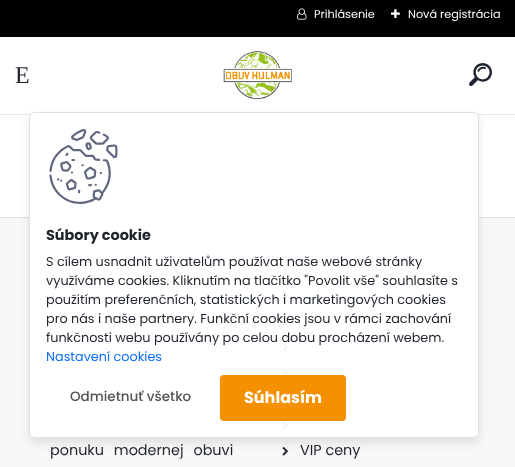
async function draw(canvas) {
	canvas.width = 515;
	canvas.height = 467;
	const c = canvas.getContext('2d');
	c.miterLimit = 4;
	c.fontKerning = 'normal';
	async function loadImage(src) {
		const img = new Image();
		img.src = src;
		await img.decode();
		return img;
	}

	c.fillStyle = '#fff';
	c.fillRect(0, 0, 515, 467);
	c.fillStyle = '#000';
	c.fillRect(0, 0, 515, 37);
	c.drawImage(await loadImage('img1.png'), 297, 8, 10, 12);
	c.font = '11.25px Poppins';
	c.fillStyle = '#fff';
	c.fillText('Prihlásenie', 314, 18);
	c.drawImage(await loadImage('img2.png'), 391, 9, 9, 9);
	c.fillText('Nová registrácia', 408, 18);
	c.fillStyle = '#e6e6e6';
	c.fillRect(0, 114, 515, 1);
	c.font = '24px Liberation Serif';
	c.fillStyle = '#1f242d';
	c.fillText('E', 15, 83);
	c.drawImage(await loadImage('img3.png'), 223, 51, 69, 49);
	c.drawImage(await loadImage('img4.png'), 469, 63, 23, 23);
	c.fillStyle = '#f8f8f8';
	c.fillRect(0, 218, 515, 249);
	c.fillStyle = '#dfdfdf';
	c.fillRect(0, 217, 515, 1);
	c.wordSpacing = '6px';
	c.font = '14.4px Poppins';
	c.fillStyle = '#1f242d';
	c.fillText('ponuku modernej obuvi', 50, 455);
	c.drawImage(await loadImage('img5.png'), 282, 291, 6, 9);
	c.drawImage(await loadImage('img5.png'), 282, 317, 6, 9);
	c.drawImage(await loadImage('img5.png'), 282, 343, 6, 9);
	c.drawImage(await loadImage('img6.png'), 282, 369, 6, 6);
	c.drawImage(await loadImage('img5.png'), 282, 421, 6, 9);
	c.drawImage(await loadImage('img5.png'), 282, 447, 6, 9);
	c.wordSpacing = '0px';
	c.fillText('VIP ceny', 300, 455);
	c.save();
	c.beginPath();
	c.moveTo(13, 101);
	c.lineTo(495, 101);
	c.lineTo(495, 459);
	c.lineTo(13, 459);
	c.closePath();
	c.moveTo(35, 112);
	c.lineTo(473, 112);
	c.bezierCurveTo(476.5, 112, 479, 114.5, 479, 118);
	c.lineTo(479, 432);
	c.bezierCurveTo(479, 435.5, 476.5, 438, 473, 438);
	c.lineTo(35, 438);
	c.bezierCurveTo(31.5, 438, 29, 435.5, 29, 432);
	c.lineTo(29, 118);
	c.bezierCurveTo(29, 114.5, 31.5, 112, 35, 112);
	c.closePath();
	c.clip('evenodd');
	c.fillStyle = '#0000001a';
	c.filter = 'blur(5px)';
	c.beginPath();
	c.roundRect(29, 117, 450, 326, 6);
	c.fill();
	c.filter = 'none';
	c.restore();
	c.fillStyle = '#fffffff2';
	c.beginPath();
	c.roundRect(29.5, 112.5, 449, 325, 5.5);
	c.fill();
	c.strokeStyle = '#e0e0e0';
	c.stroke();
	c.drawImage(await loadImage('img7.png'), 49, 129, 69, 75);
	c.font = 'bold 14.4px Poppins';
	c.fillStyle = '#1f242d';
	c.fillText('Súbory cookie', 46, 240);
	c.font = '12.8px Poppins';
	for (const [text, x, y] of [
		['S cílem usnadnit uživatelům používat naše webové stránky', 46, 266],
		['využíváme cookies. Kliknutím na tlačítko "Povolit vše" souhlasíte s', 46, 285],
		['použitím preferenčních, statistických i marketingových cookies', 46, 304],
		['pro nás i naše partnery. Funkční cookies jsou v rámci zachování', 46, 323],
		['funkčnosti webu používány po celou dobu procházení webem.', 46, 342],
	]) {
		c.fillText(text, x, y);
	}
	c.fillStyle = '#0d6efd';
	c.fillText('Nastavení cookies', 46, 361);
	c.font = '500 13.5px Poppins';
	c.fillStyle = '#535353';
	c.fillText('Odmietnuť všetko', 70, 401);
	c.fillStyle = '#f59000';
	c.beginPath();
	c.roundRect(220, 375, 126, 46, 4);
	c.fill();
	c.font = 'bold 16px Poppins';
	c.fillStyle = '#fff';
	c.fillText('Súhlasím', 244, 403);
}

draw(document.querySelector('canvas'));
